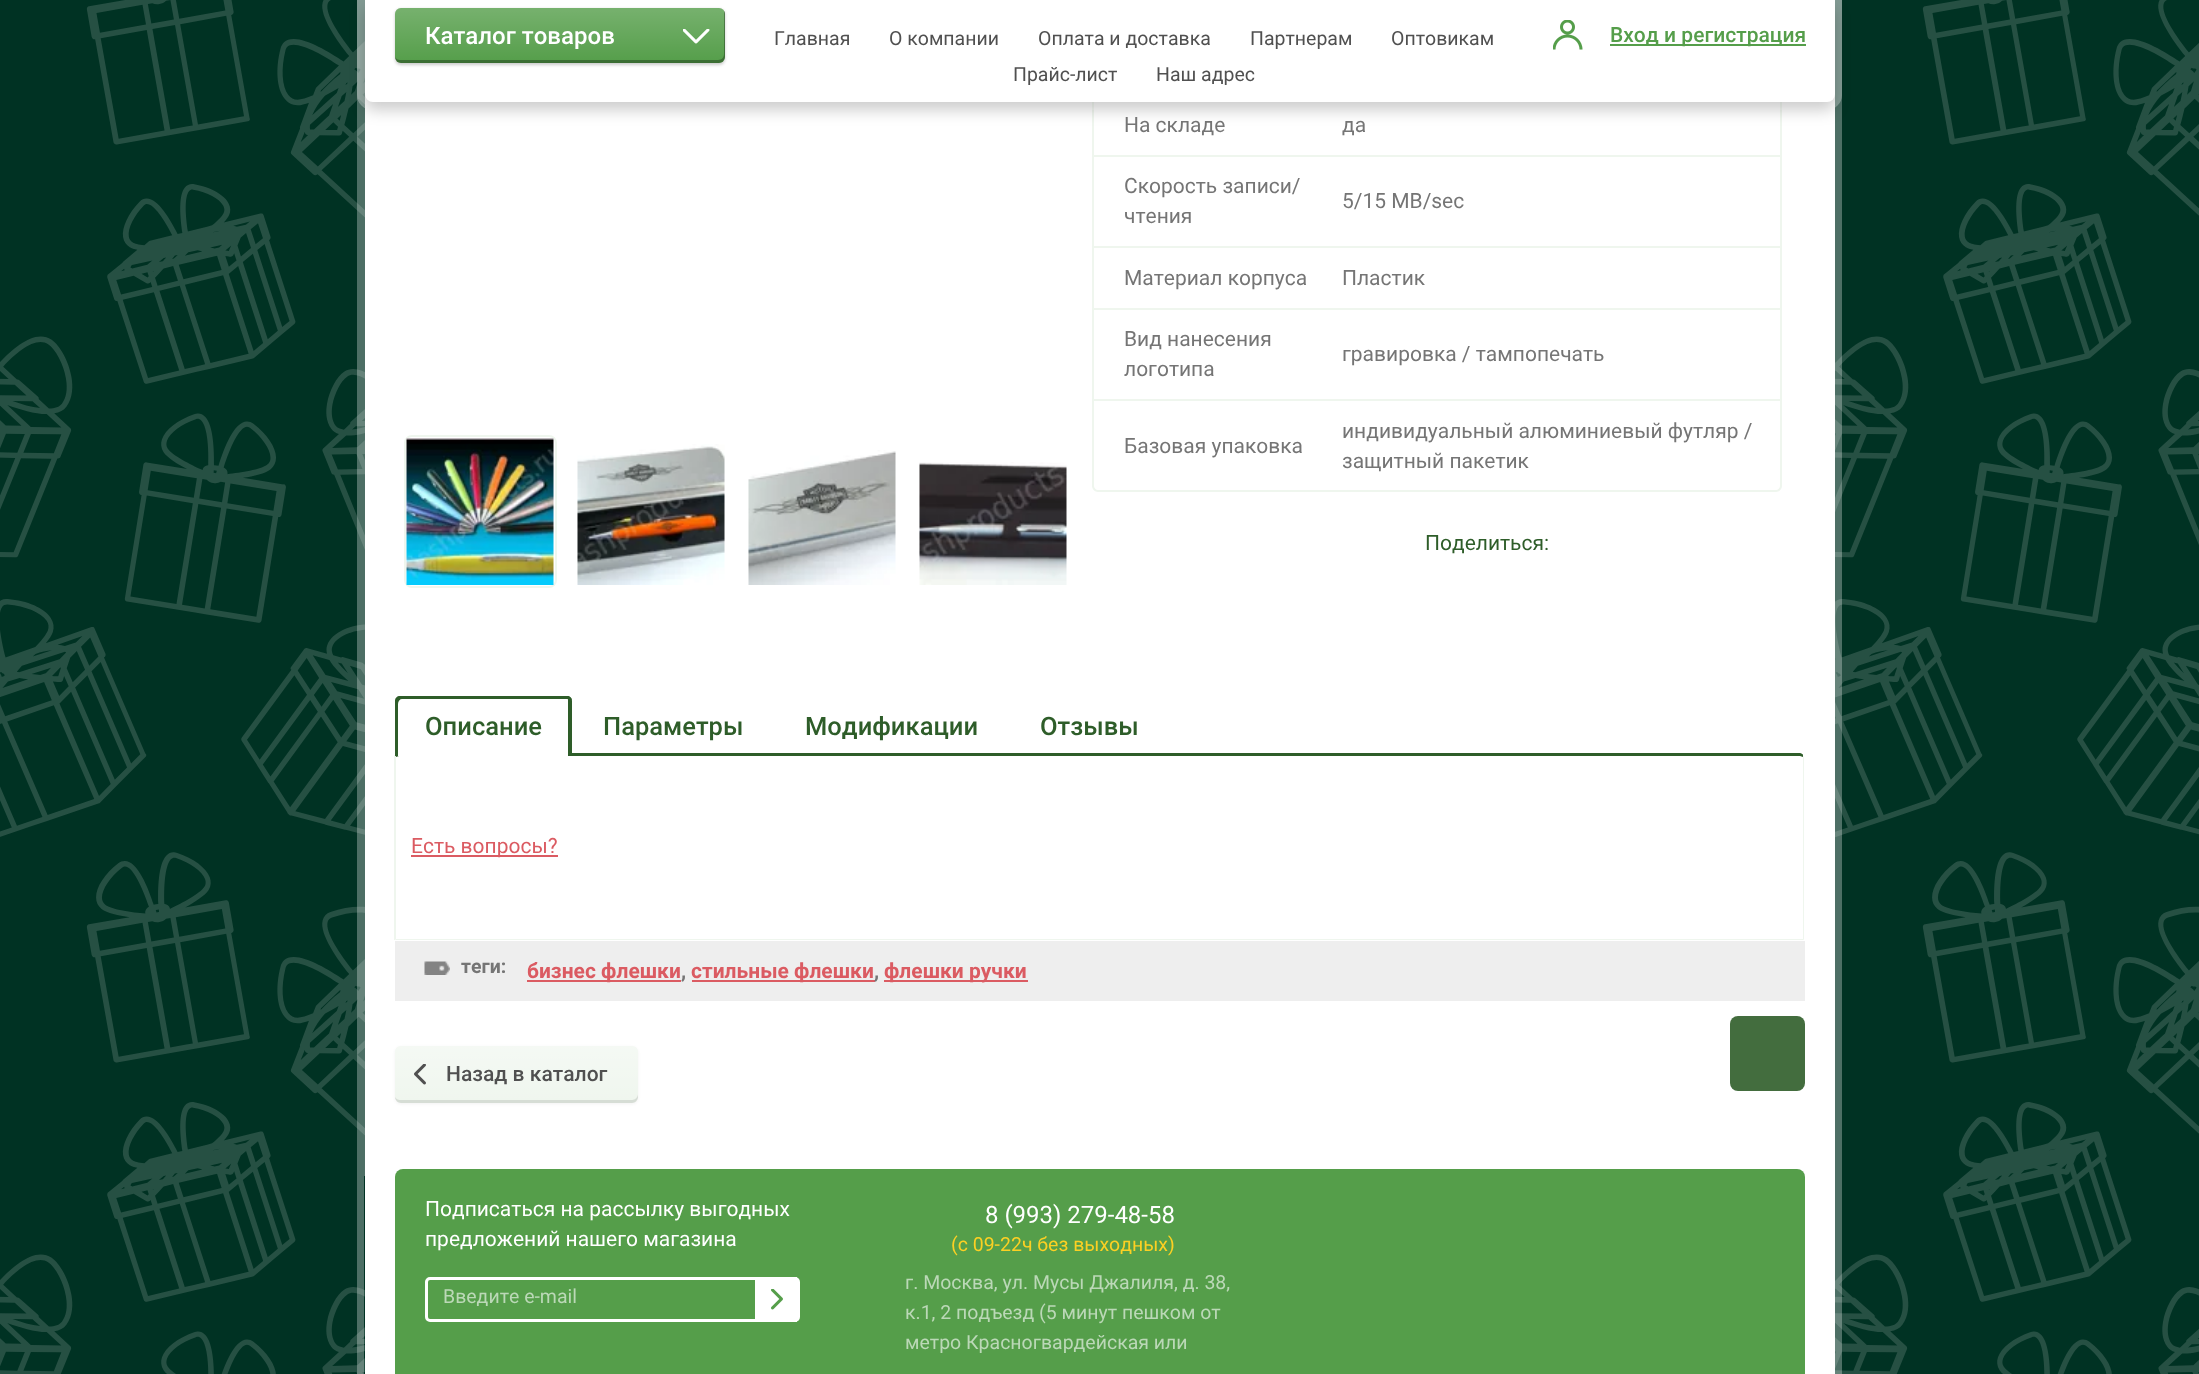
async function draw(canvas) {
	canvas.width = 2199;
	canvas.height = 1374;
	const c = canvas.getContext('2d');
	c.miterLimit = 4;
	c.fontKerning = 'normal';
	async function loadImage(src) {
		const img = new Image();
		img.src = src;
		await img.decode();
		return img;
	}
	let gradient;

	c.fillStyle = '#003223';
	c.fillRect(0, 0, 2199, 1374);
	c.drawImage(await loadImage('img1.png'), 0, 0, 2199, 1374);
	c.strokeStyle = '#ffffff4d';
	c.lineWidth = 8;
	c.strokeRect(361, -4, 1477, 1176);
	c.fillStyle = '#fff';
	c.fillRect(365, 94, 1470, 1075);
	c.fillStyle = '#eff6ee';
	c.beginPath();
	c.moveTo(1098, -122);
	c.lineTo(1776, -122);
	c.bezierCurveTo(1779, -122, 1782, -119, 1782, -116);
	c.lineTo(1782, 486);
	c.bezierCurveTo(1782, 489, 1779, 492, 1776, 492);
	c.lineTo(1098, 492);
	c.bezierCurveTo(1095, 492, 1092, 489, 1092, 486);
	c.lineTo(1092, -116);
	c.bezierCurveTo(1092, -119, 1095, -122, 1098, -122);
	c.closePath();
	c.moveTo(1098, -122);
	c.lineTo(1776, -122);
	c.bezierCurveTo(1778, -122, 1780, -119, 1780, -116);
	c.lineTo(1780, 486);
	c.bezierCurveTo(1780, 488, 1778, 490, 1776, 490);
	c.lineTo(1098, 490);
	c.bezierCurveTo(1096, 490, 1094, 488, 1094, 486);
	c.lineTo(1094, -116);
	c.bezierCurveTo(1094, -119, 1096, -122, 1098, -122);
	c.closePath();
	c.fill('evenodd');
	c.beginPath();
	c.moveTo(361, -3);
	c.lineTo(1838, -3);
	c.lineTo(1838, 95);
	c.bezierCurveTo(1838, 101, 1833, 106, 1827, 106);
	c.lineTo(372, 106);
	c.bezierCurveTo(366, 106, 361, 101, 361, 95);
	c.closePath();
	c.stroke();
	c.fillStyle = '#00000033';
	c.filter = 'blur(7.5px)';
	c.beginPath();
	c.roundRect(365, 8, 1470, 102, 8);
	c.fill();
	c.filter = 'none';
	c.fillStyle = '#fff';
	c.beginPath();
	c.roundRect(365, 0, 1470, 102, [0, 0, 8, 8]);
	c.fill();
	c.fillStyle = '#00000033';
	c.filter = 'blur(1.5px)';
	c.beginPath();
	c.roundRect(395, 9, 330, 56, 6);
	c.fill();
	c.filter = 'none';
	c.fillStyle = '#559e4a';
	c.beginPath();
	c.roundRect(395, 8, 330, 55, 6);
	c.fill();
	gradient = c.createLinearGradient(560, 63, 560, 7.5);
	gradient.addColorStop(0, '#ffffff00');
	gradient.addColorStop(1, '#ffffff33');
	c.fillStyle = gradient;
	c.beginPath();
	c.roundRect(395, 8, 330, 55, 6);
	c.fill();
	c.fillStyle = '#0000004d';
	c.beginPath();
	c.moveTo(395, 57);
	c.bezierCurveTo(395, 60, 398, 63, 401, 63);
	c.lineTo(719, 63);
	c.bezierCurveTo(722, 63, 725, 60, 725, 57);
	c.lineTo(725, 14);
	c.bezierCurveTo(725, 13, 725, 12, 724, 11);
	c.lineTo(724, 54);
	c.bezierCurveTo(724, 57, 722, 60, 718, 60);
	c.lineTo(400, 60);
	c.bezierCurveTo(398, 60, 396, 59, 395, 57);
	c.closePath();
	c.fill();
	c.drawImage(await loadImage('img2.png'), 683, 29, 27, 15);
	c.font = '500 24px Roboto';
	c.fillStyle = '#fff';
	c.fillText('Каталог товаров', 425, 44);
	c.drawImage(await loadImage('img3.png'), 1553, 20, 30, 30);
	c.fillStyle = '#559e4a';
	c.fillRect(1610, 44, 196, 2);
	c.font = '500 21px Roboto';
	c.fillText('Вход и регистрация', 1610, 42);
	c.font = '19.5px roboto';
	c.fillStyle = '#505050';
	for (const [text, x, y] of [
		['Главная', 774, 45],
		['О компании', 889, 45],
		['Оплата и доставка', 1038, 45],
		['Партнерам', 1250, 45],
		['Оптовикам', 1391, 45],
		['Прайс-лист', 1013, 81],
		['Наш адрес', 1156, 81],
	]) {
		c.fillText(text, x, y);
	}
	c.font = '21px roboto';
	c.fillStyle = '#757575';
	c.fillText('На складе', 1124, 132);
	c.fillText('да', 1342, 132);
	c.fillStyle = '#eff6ee';
	c.fillRect(1094, 155, 687, 2);
	c.fillStyle = '#757575';
	for (const [text, x, y] of [
		['Скорость записи/', 1124, 193],
		['чтения', 1124, 223],
		['5/15 MВ/sec', 1342, 208],
	]) {
		c.fillText(text, x, y);
	}
	c.fillStyle = '#eff6ee';
	c.fillRect(1094, 246, 687, 2);
	c.fillStyle = '#757575';
	c.fillText('Материал корпуса', 1124, 285);
	c.fillText('Пластик', 1342, 285);
	c.fillStyle = '#eff6ee';
	c.fillRect(1094, 308, 687, 2);
	c.fillStyle = '#757575';
	for (const [text, x, y] of [
		['Вид нанесения', 1124, 346],
		['логотипа', 1124, 376],
		['гравировка / тампопечать', 1342, 361],
	]) {
		c.fillText(text, x, y);
	}
	c.fillStyle = '#eff6ee';
	c.fillRect(1094, 399, 687, 2);
	c.fillStyle = '#757575';
	for (const [text, x, y] of [
		['Базовая упаковка', 1124, 453],
		['индивидуальный алюминиевый футляр /', 1342, 438],
		['защитный пакетик', 1342, 468],
	]) {
		c.fillText(text, x, y);
	}
	c.beginPath();
	c.roundRect(405, 436, 151, 151, 7);
	c.strokeStyle = '#eff6ee';
	c.lineWidth = 2;
	c.stroke();
	c.drawImage(await loadImage('img4.png'), 406, 438, 148, 147);
	c.drawImage(await loadImage('img5.png'), 577, 444, 148, 141);
	c.drawImage(await loadImage('img6.png'), 748, 450, 148, 135);
	c.drawImage(await loadImage('img7.png'), 919, 462, 148, 123);
	c.fillStyle = '#2e5d29';
	c.fillText('Поделиться:', 1425, 550);
	c.beginPath();
	c.moveTo(399, 753);
	c.bezierCurveTo(398, 753, 396, 754, 395, 755);
	c.lineTo(396, 757);
	c.lineTo(399, 756);
	c.lineTo(1800, 756);
	c.lineTo(1803, 757);
	c.lineTo(1803, 755);
	c.bezierCurveTo(1803, 754, 1801, 753, 1800, 753);
	c.closePath();
	c.fill();
	c.fillStyle = '#eff6ee';
	c.beginPath();
	c.moveTo(1803, 755);
	c.lineTo(1804, 758);
	c.lineTo(1804, 940);
	c.lineTo(1803, 939);
	c.lineTo(1803, 758);
	c.lineTo(1803, 757);
	c.closePath();
	c.fill();
	c.beginPath();
	c.moveTo(1804, 940);
	c.lineTo(1803, 939);
	c.lineTo(396, 939);
	c.lineTo(395, 940);
	c.closePath();
	c.fill();
	c.beginPath();
	c.moveTo(394, 756);
	c.lineTo(395, 755);
	c.lineTo(396, 757);
	c.lineTo(396, 758);
	c.lineTo(396, 939);
	c.lineTo(395, 940);
	c.lineTo(394, 940);
	c.closePath();
	c.fill();
	c.fillStyle = '#fff';
	c.beginPath();
	c.roundRect(395, 696, 177, 60, [5, 5, 0, 0]);
	c.fill();
	c.fillStyle = '#2e5d29';
	c.beginPath();
	c.moveTo(568, 756);
	c.lineTo(572, 756);
	c.lineTo(572, 701);
	c.bezierCurveTo(572, 698, 570, 696, 567, 696);
	c.lineTo(564, 696);
	c.bezierCurveTo(566, 696, 568, 698, 568, 700);
	c.closePath();
	c.fill();
	c.beginPath();
	c.moveTo(402, 699);
	c.lineTo(570, 699);
	c.lineTo(572, 700);
	c.bezierCurveTo(571, 697, 569, 696, 567, 696);
	c.lineTo(400, 696);
	c.bezierCurveTo(397, 696, 395, 698, 395, 701);
	c.lineTo(395, 756);
	c.lineTo(398, 756);
	c.lineTo(398, 704);
	c.bezierCurveTo(398, 701, 400, 699, 402, 699);
	c.closePath();
	c.fill();
	c.font = '500 25.5px Roboto';
	for (const [text, x, y] of [
		['Описание', 425, 735],
		['Параметры', 603, 735],
		['Модификации', 805, 735],
		['Отзывы', 1040, 735],
	]) {
		c.fillText(text, x, y);
	}
	c.fillStyle = '#db5b62';
	c.fillRect(411, 855, 147, 2);
	c.font = '21px roboto';
	c.fillText('Есть вопросы?', 411, 853);
	c.fillStyle = '#eee';
	c.fillRect(395, 941, 1410, 60);
	c.drawImage(await loadImage('img8.png'), 424, 961, 26, 14);
	c.font = 'bold 19.5px roboto';
	c.fillStyle = '#757575';
	c.fillText('теги:', 461, 973);
	c.fillStyle = '#db5b62';
	c.fillRect(527, 980, 154, 2);
	c.font = 'bold 21px roboto';
	c.fillText('бизнес флешки', 527, 978);
	c.fillStyle = '#757575';
	c.fillText(',', 681, 978);
	c.fillStyle = '#db5b62';
	c.fillRect(692, 980, 183, 2);
	c.fillText('стильные флешки', 691, 978);
	c.fillStyle = '#757575';
	c.fillText(',', 874, 978);
	c.fillStyle = '#db5b62';
	c.fillRect(884, 980, 144, 2);
	c.fillText('флешки ручки', 884, 978);
	c.fillStyle = '#0000000d';
	c.filter = 'blur(1.5px)';
	c.beginPath();
	c.roundRect(395, 1047, 243, 57, 6);
	c.fill();
	c.filter = 'none';
	c.fillStyle = '#eff6ee';
	c.beginPath();
	c.roundRect(395, 1046, 243, 57, 6);
	c.fill();
	gradient = c.createLinearGradient(516, 1103, 516, 1046);
	gradient.addColorStop(0, '#ffffff00');
	gradient.addColorStop(1, '#ffffff5c');
	c.fillStyle = gradient;
	c.beginPath();
	c.roundRect(395, 1046, 243, 57, 6);
	c.fill();
	c.fillStyle = '#0000001a';
	c.beginPath();
	c.moveTo(395, 1097);
	c.bezierCurveTo(395, 1100, 398, 1103, 401, 1103);
	c.lineTo(632, 1103);
	c.bezierCurveTo(635, 1103, 638, 1100, 638, 1097);
	c.lineTo(638, 1094);
	c.bezierCurveTo(638, 1097, 635, 1100, 632, 1100);
	c.lineTo(400, 1100);
	c.bezierCurveTo(398, 1100, 396, 1099, 395, 1097);
	c.closePath();
	c.fill();
	c.drawImage(await loadImage('img9.png'), 414, 1064, 12, 21);
	c.font = '500 21px Roboto';
	c.fillStyle = '#505050';
	c.fillText('Назад в каталог', 446, 1081);
	c.fillStyle = '#436d3e';
	c.beginPath();
	c.roundRect(1730, 1016, 75, 75, 8);
	c.fill();
	c.fillStyle = '#ffffff4d';
	c.beginPath();
	c.moveTo(357, 1176);
	c.lineTo(357, 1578);
	c.lineTo(1842, 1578);
	c.lineTo(1842, 1176);
	c.lineTo(1834, 1176);
	c.lineTo(1834, 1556);
	c.lineTo(364, 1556);
	c.lineTo(364, 1176);
	c.closePath();
	c.fill();
	c.fillStyle = '#fff';
	c.fillRect(365, 1169, 1470, 205);
	c.fillStyle = '#559e4a';
	c.beginPath();
	c.roundRect(395, 1169, 1410, 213, 8);
	c.fill();
	c.font = '21px roboto';
	c.fillStyle = '#fff';
	c.fillText('Подписаться на рассылку выгодных', 425, 1216);
	c.fillText('предложений нашего магазина', 425, 1246);
	c.beginPath();
	c.roundRect(426.5, 1278.5, 369, 42, [3.5, 0, 0, 3.5]);
	c.strokeStyle = '#fff';
	c.lineWidth = 3;
	c.stroke();
	c.font = '19.5px roboto';
	c.fillStyle = '#bbd8b7';
	c.fillText('Введите e-mail', 443, 1303);
	c.fillStyle = '#fff';
	c.beginPath();
	c.roundRect(755, 1277, 45, 45, [0, 5, 5, 0]);
	c.fill();
	c.drawImage(await loadImage('img10.png'), 771, 1289, 12, 21);
	c.font = '24px roboto';
	c.fillText('8 (993) 279-48-58', 985, 1223);
	c.font = '19.5px roboto';
	c.fillStyle = '#fcd023';
	c.fillText('(с 09-22ч без выходных)', 951, 1251);
	c.fillStyle = '#bbd8b7';
	for (const [text, x, y] of [
		['г. Москва, ул. Мусы Джалиля, д. 38,', 905, 1289],
		['к.1, 2 подъезд (5 минут пешком от', 905, 1319],
		['метро Красногвардейская или', 905, 1349],
	]) {
		c.fillText(text, x, y);
	}
}

draw(document.querySelector('canvas'));
